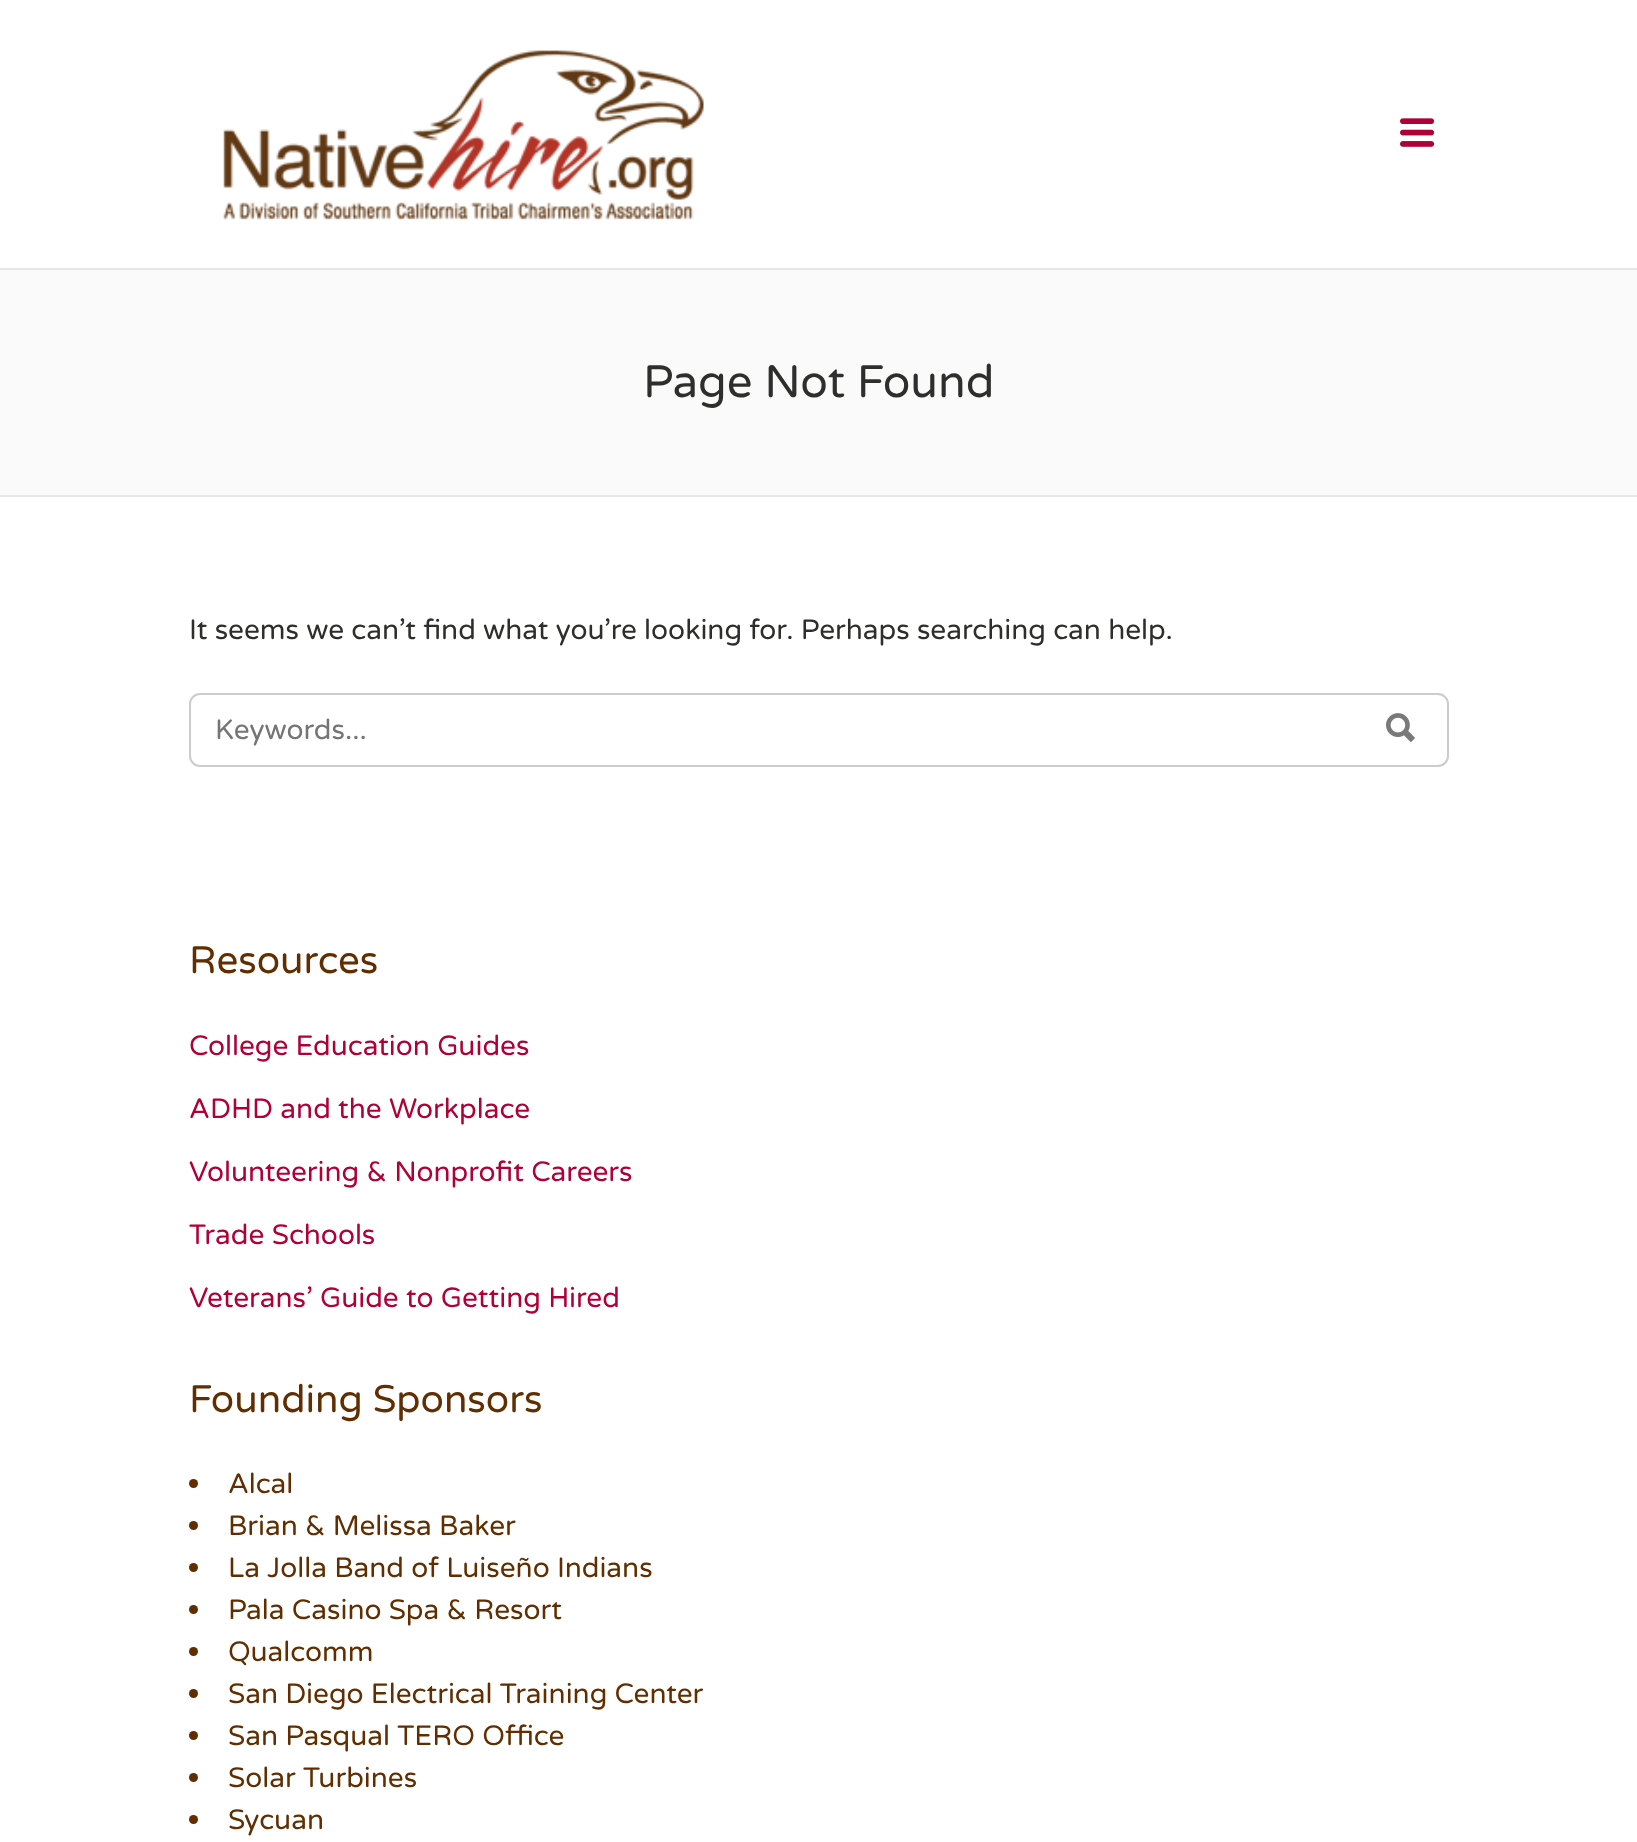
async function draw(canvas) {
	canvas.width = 1637;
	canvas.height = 1842;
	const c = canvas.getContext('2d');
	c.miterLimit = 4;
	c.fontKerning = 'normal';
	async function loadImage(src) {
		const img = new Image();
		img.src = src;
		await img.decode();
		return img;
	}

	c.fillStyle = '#fff';
	c.fillRect(0, 0, 1637, 1842);
	c.fillStyle = '#e6e6e6';
	c.fillRect(0, 268, 1637, 2);
	c.drawImage(await loadImage('img1.png'), 223, 50, 481, 170);
	c.drawImage(await loadImage('img2.png'), 1400, 118, 35, 29);
	c.fillStyle = '#fafafa';
	c.fillRect(0, 270, 1637, 225);
	c.fillStyle = '#e7e7e7';
	c.fillRect(0, 495, 1637, 2);
	c.font = '45.5px Varela Round';
	c.fillStyle = '#2e2e2c';
	c.fillText('Page Not Found', 643, 397);
	c.font = '28px Varela Round';
	c.fillText('It seems we can’t find what you’re looking for. Perhaps searching can help.', 189, 639);
	c.beginPath();
	c.roundRect(190, 694, 1258, 72, 10);
	c.strokeStyle = '#ccc';
	c.lineWidth = 2;
	c.stroke();
	c.fillStyle = '#757575';
	c.fillText('Keywords...', 215, 739);
	c.drawImage(await loadImage('img3.png'), 1386, 713, 29, 29);
	c.font = '38.5px Varela Round';
	c.fillStyle = '#602e00';
	c.fillText('Resources', 189, 973);
	c.font = '28px Varela Round';
	c.fillStyle = '#af0136';
	for (const [text, x, y] of [
		['College Education Guides', 189, 1055],
		['ADHD and the Workplace', 189, 1118],
		['Volunteering & Nonprofit Careers', 189, 1181],
		['Trade Schools', 189, 1244],
		['Veterans’ Guide to Getting Hired', 189, 1307],
	]) {
		c.fillText(text, x, y);
	}
	c.font = '38.5px Varela Round';
	c.fillStyle = '#602e00';
	c.fillText('Founding Sponsors', 189, 1412);
	c.beginPath();
	c.arc(193.5, 1483.5, 4.5, 0, 2 * Math.PI);
	c.fill();
	c.font = '28px Varela Round';
	c.fillText('Alcal', 228, 1493);
	c.beginPath();
	c.arc(193.5, 1525.5, 4.5, 0, 2 * Math.PI);
	c.fill();
	c.fillText('Brian & Melissa Baker', 228, 1535);
	c.beginPath();
	c.arc(193.5, 1567.5, 4.5, 0, 2 * Math.PI);
	c.fill();
	c.fillText('La Jolla Band of Luiseño Indians', 228, 1577);
	c.beginPath();
	c.arc(193.5, 1609.5, 4.5, 0, 2 * Math.PI);
	c.fill();
	c.fillText('Pala Casino Spa & Resort', 228, 1619);
	c.beginPath();
	c.arc(193.5, 1651.5, 4.5, 0, 2 * Math.PI);
	c.fill();
	c.fillText('Qualcomm', 228, 1661);
	c.beginPath();
	c.arc(193.5, 1693.5, 4.5, 0, 2 * Math.PI);
	c.fill();
	c.fillText('San Diego Electrical Training Center', 228, 1703);
	c.beginPath();
	c.arc(193.5, 1735.5, 4.5, 0, 2 * Math.PI);
	c.fill();
	c.fillText('San Pasqual TERO Office', 228, 1745);
	c.beginPath();
	c.arc(193.5, 1777.5, 4.5, 0, 2 * Math.PI);
	c.fill();
	c.fillText('Solar Turbines', 228, 1787);
	c.beginPath();
	c.arc(193.5, 1819.5, 4.5, 0, 2 * Math.PI);
	c.fill();
	c.fillText('Sycuan', 228, 1829);
}

draw(document.querySelector('canvas'));
